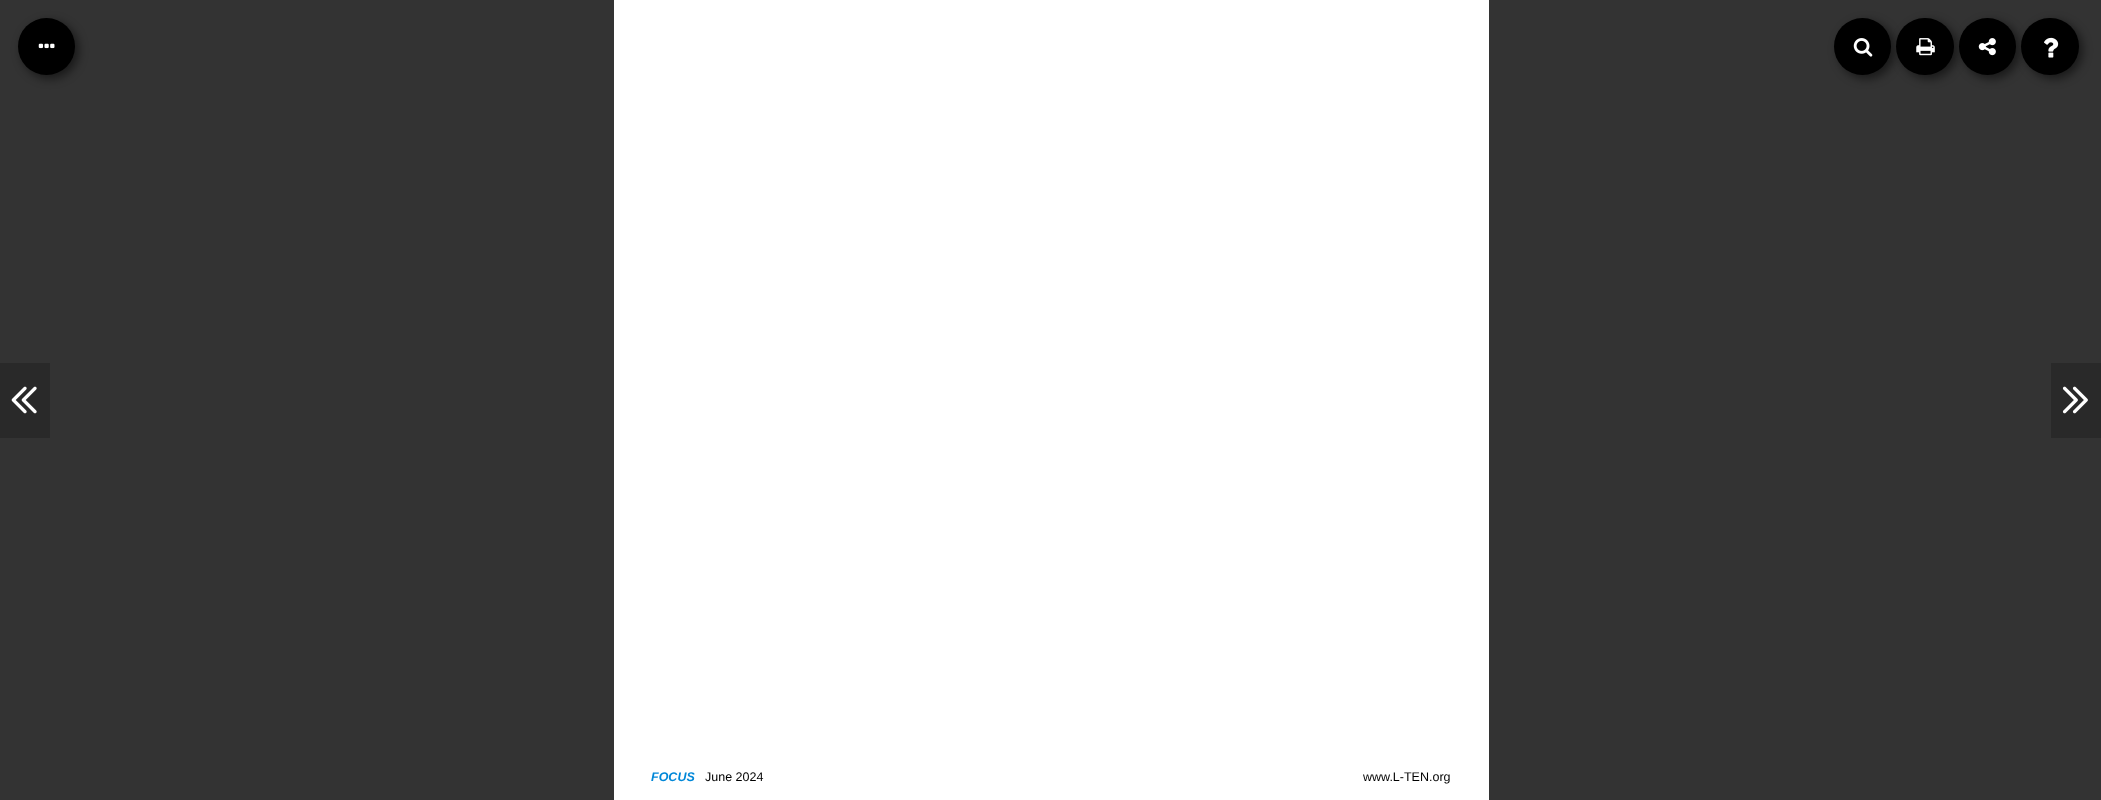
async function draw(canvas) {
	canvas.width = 2101;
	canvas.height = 800;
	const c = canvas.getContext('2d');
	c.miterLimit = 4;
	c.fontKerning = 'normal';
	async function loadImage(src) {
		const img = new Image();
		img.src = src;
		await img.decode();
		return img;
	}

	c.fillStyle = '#333';
	c.fillRect(0, 0, 2101, 800);
	c.fillStyle = '#00000080';
	c.filter = 'blur(5px)';
	c.beginPath();
	c.roundRect(21, 21, 58, 58, 29);
	c.fill();
	c.filter = 'none';
	c.fillStyle = '#000';
	c.beginPath();
	c.arc(46.5, 46.5, 28.5, 0, 2 * Math.PI);
	c.fill();
	c.drawImage(await loadImage('img1.png'), 38, 43, 17, 6);
	c.fillStyle = '#00000080';
	c.filter = 'blur(5px)';
	c.beginPath();
	c.roundRect(2025, 21, 58, 58, 29);
	c.fill();
	c.filter = 'none';
	c.fillStyle = '#000';
	c.beginPath();
	c.roundRect(2021, 18, 58, 57, 28.5);
	c.fill();
	c.fillStyle = '#00000080';
	c.filter = 'blur(5px)';
	c.beginPath();
	c.roundRect(1963, 21, 57, 58, 28.5);
	c.fill();
	c.filter = 'none';
	c.fillStyle = '#000';
	c.beginPath();
	c.arc(1987.5, 46.5, 28.5, 0, 2 * Math.PI);
	c.fill();
	c.fillStyle = '#00000080';
	c.filter = 'blur(5px)';
	c.beginPath();
	c.roundRect(1900, 21, 58, 58, 29);
	c.fill();
	c.filter = 'none';
	c.fillStyle = '#000';
	c.beginPath();
	c.roundRect(1896, 18, 58, 57, 28.5);
	c.fill();
	c.fillStyle = '#00000080';
	c.filter = 'blur(5px)';
	c.beginPath();
	c.roundRect(1838, 21, 57, 58, 28.5);
	c.fill();
	c.filter = 'none';
	c.fillStyle = '#000';
	c.beginPath();
	c.arc(1862.5, 46.5, 28.5, 0, 2 * Math.PI);
	c.fill();
	c.drawImage(await loadImage('img2.png'), 1853, 38, 20, 19);
	c.drawImage(await loadImage('img3.png'), 1916, 38, 19, 18);
	c.drawImage(await loadImage('img4.png'), 1978, 38, 18, 18);
	c.drawImage(await loadImage('img5.png'), 2044, 37, 15, 21);
	c.fillStyle = '#292929';
	c.fillRect(0, 363, 50, 75);
	c.drawImage(await loadImage('img6.png'), 11, 386, 26, 28);
	c.fillRect(2051, 363, 50, 75);
	c.drawImage(await loadImage('img7.png'), 2062, 386, 26, 28);
	c.fillStyle = '#fff';
	c.fillRect(614, 0, 875, 800);
	c.font = 'italic bold 12.5px Liberation Sans';
	c.fillStyle = '#0087d8';
	c.fillText('FOCUS', 651, 781);
	c.font = '12.5px Liberation Sans';
	c.fillStyle = '#000';
	c.fillText('June 2024', 705, 781);
	c.fillText('www.L-TEN.org', 1363, 781);
}

draw(document.querySelector('canvas'));
